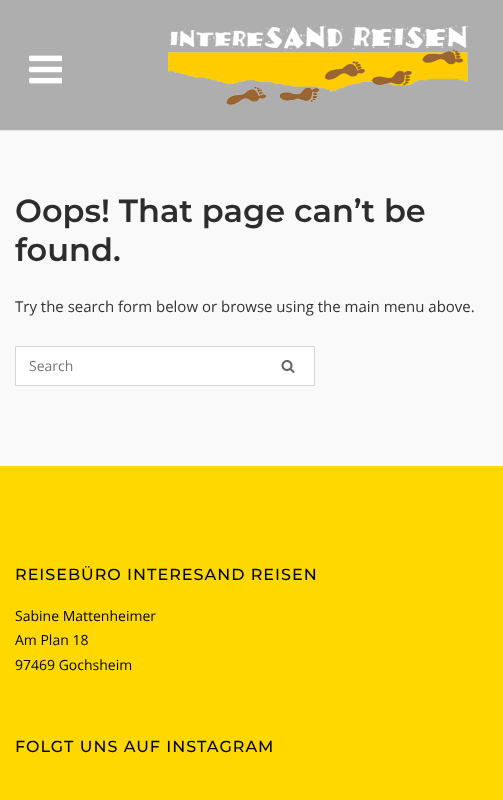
async function draw(canvas) {
	canvas.width = 503;
	canvas.height = 800;
	const c = canvas.getContext('2d');
	c.miterLimit = 4;
	c.fontKerning = 'normal';
	async function loadImage(src) {
		const img = new Image();
		img.src = src;
		await img.decode();
		return img;
	}

	c.fillStyle = '#f9f9f9';
	c.fillRect(0, 0, 503, 800);
	c.fillStyle = '#aeaeae';
	c.fillRect(0, 0, 503, 130);
	c.fillStyle = '#e6e6e6';
	c.fillRect(0, 130, 503, 1);
	c.drawImage(await loadImage('img1.png'), 29, 55, 33, 29);
	c.drawImage(await loadImage('img2.png'), 168, 25, 300, 80);
	c.font = '600 32px Montserrat';
	c.fillStyle = '#2d2d2d';
	c.fillText('Oops! That page can’t be', 15, 222);
	c.fillText('found.', 15, 261);
	c.font = '15px Open Sans';
	c.fillStyle = '#333';
	c.fillText('Try the search form below or browse using the main menu above.', 15, 312);
	c.fillStyle = '#fff';
	c.beginPath();
	c.rect(15.5, 346.5, 299, 39);
	c.fill();
	c.strokeStyle = '#d6d6d6';
	c.stroke();
	c.font = '14px Open Sans';
	c.fillStyle = '#757575';
	c.fillText('Search', 29, 371);
	c.drawImage(await loadImage('img3.png'), 281, 360, 14, 13);
	c.fillStyle = '#ffd800';
	c.fillRect(0, 466, 503, 334);
	c.letterSpacing = '1px';
	c.font = '500 16px Montserrat';
	c.fillStyle = '#000';
	c.fillText('REISEBÜRO INTERESAND REISEN', 15, 580);
	c.letterSpacing = '0px';
	c.font = '14px Open Sans';
	for (const [text, x, y] of [
		['Sabine Mattenheimer', 15, 621],
		['Am Plan 18', 15, 645],
		['97469 Gochsheim', 15, 670],
	]) {
		c.fillText(text, x, y);
	}
	c.letterSpacing = '1px';
	c.font = '500 16px Montserrat';
	c.fillText('FOLGT UNS AUF INSTAGRAM', 15, 752);
}

draw(document.querySelector('canvas'));
